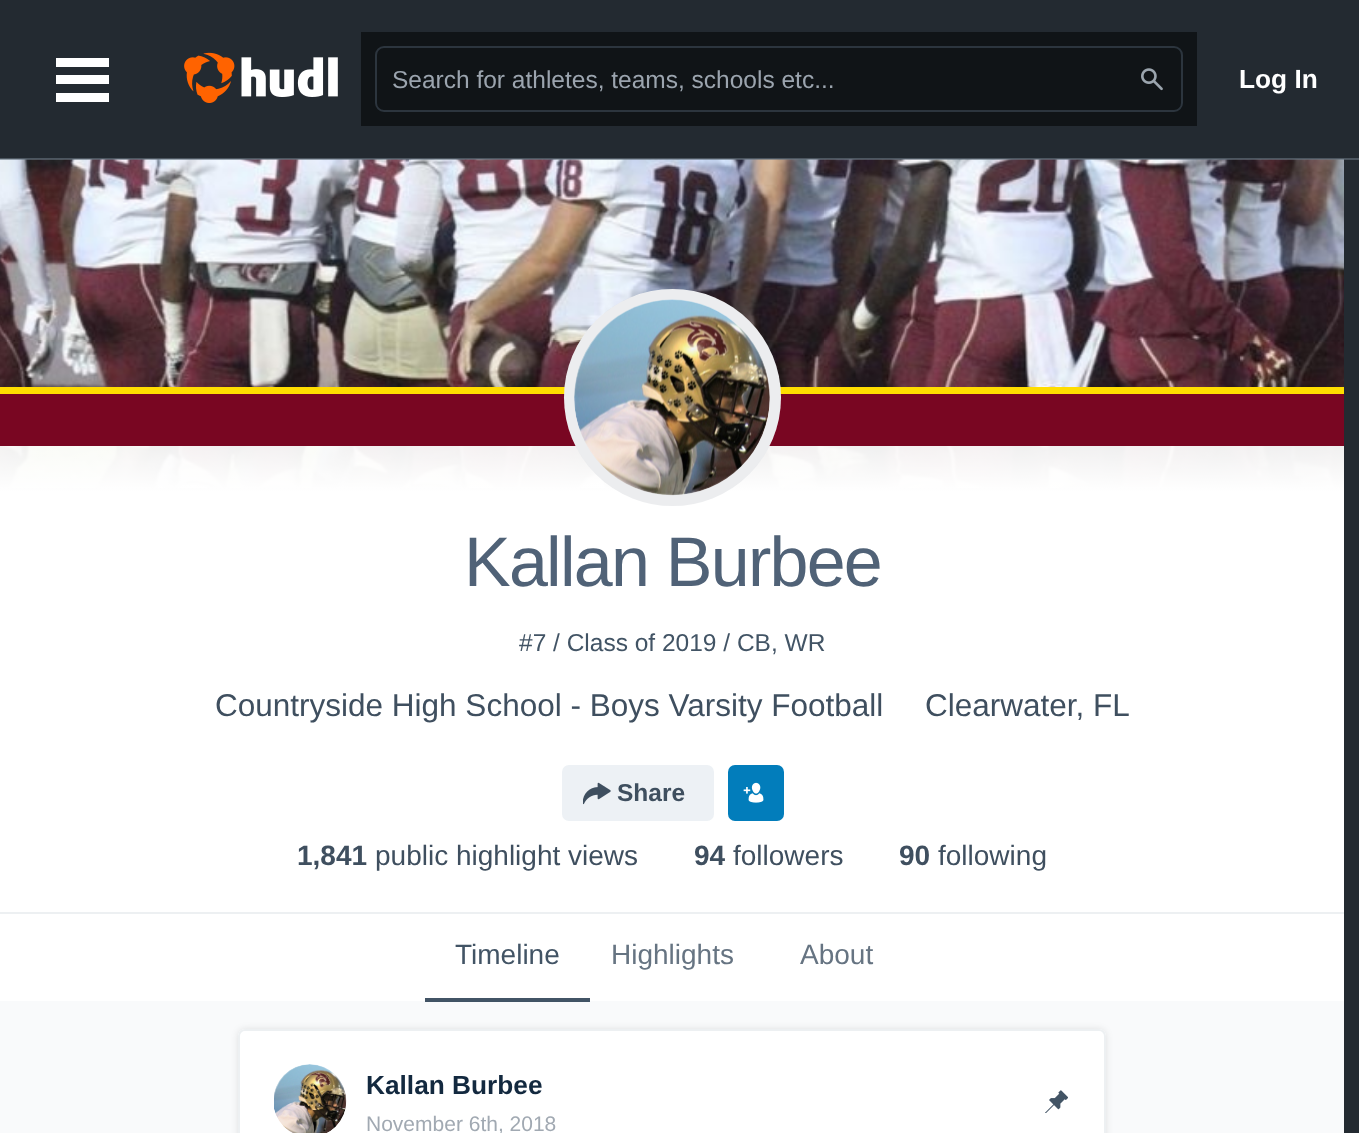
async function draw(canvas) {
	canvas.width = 1359;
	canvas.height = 1133;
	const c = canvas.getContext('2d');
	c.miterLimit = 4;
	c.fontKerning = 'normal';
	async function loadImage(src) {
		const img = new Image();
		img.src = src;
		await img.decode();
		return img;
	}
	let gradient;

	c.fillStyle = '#232a31';
	c.fillRect(0, 0, 1359, 1133);
	c.drawImage(await loadImage('img3.png'), 0, 159, 1344, 329);
	for (const [x, y, w, h, color] of [
		[0, 158, 1359, 2, '#68758199'],
		[56, 58, 53, 9, '#fff'],
		[56, 75, 53, 9, '#fff'],
		[56, 93, 53, 9, '#fff'],
	]) {
		c.fillStyle = color;
		c.fillRect(x, y, w, h);
	}
	c.drawImage(await loadImage('img1.png'), 184, 52, 154, 51);
	c.fillStyle = '#101417';
	c.fillRect(361, 32, 836, 94);
	c.beginPath();
	c.roundRect(376, 47, 806, 64, 8);
	c.strokeStyle = '#2c353e';
	c.lineWidth = 2;
	c.stroke();
	c.font = '24.5px Liberation Sans';
	c.fillStyle = '#9ba4ae';
	c.fillText('Search for athletes, teams, schools etc...', 392, 88);
	c.drawImage(await loadImage('img2.png'), 1141, 68, 22, 23);
	c.font = 'bold 26.25px Liberation Sans';
	c.fillStyle = '#fff';
	c.fillText('Log In', 1239, 88);
	gradient = c.createLinearGradient(672, 387, 672, 912);
	gradient.addColorStop(0, '#ffffffd9');
	gradient.addColorStop(0.2, '#fff');
	c.fillStyle = gradient;
	c.fillRect(0, 446, 1344, 466);
	for (const [x, y, w, h, color] of [
		[0, 912, 1344, 2, '#edf0f2'],
		[0, 387, 1344, 7, '#fd0'],
		[0, 394, 1344, 52, '#790622'],
	]) {
		c.fillStyle = color;
		c.fillRect(x, y, w, h);
	}
	c.fillStyle = '#fff';
	c.beginPath();
	c.arc(672.5, 397.5, 108.5, 0, 2 * Math.PI);
	c.fill();
	c.beginPath();
	c.arc(672.5, 397.5, 103, 0, 2 * Math.PI);
	c.strokeStyle = '#45525e1a';
	c.lineWidth = 11;
	c.stroke();
	c.drawImage(await loadImage('img4.png'), 574, 299, 196, 197);
	c.letterSpacing = '-1.75px';
	c.font = '70px Liberation Sans';
	c.fillStyle = '#506277';
	c.fillText('Kallan Burbee', 464, 586);
	c.letterSpacing = '0px';
	c.font = '24.5px Liberation Sans';
	c.fillStyle = '#425465';
	c.fillText('#7 / Class of 2019 / CB, WR', 519, 651);
	c.font = '31.5px Liberation Sans';
	c.fillStyle = '#3f4f5f';
	c.fillText('Countryside High School - Boys Varsity Football', 215, 716);
	c.fillText('Clearwater, FL', 925, 716);
	c.fillStyle = '#edf1f5';
	c.beginPath();
	c.roundRect(562, 765, 152, 56, 7);
	c.fill();
	c.drawImage(await loadImage('img5.png'), 583, 782, 28, 23);
	c.font = 'bold 24.5px Liberation Sans';
	c.fillStyle = '#3f4f5f';
	c.fillText('Share', 617, 801);
	c.fillStyle = '#027dbb';
	c.beginPath();
	c.roundRect(728, 765, 56, 56, 7);
	c.fill();
	c.drawImage(await loadImage('img6.png'), 743, 782, 21, 21);
	c.font = 'bold 28px Liberation Sans';
	c.fillStyle = '#3f4f5f';
	c.fillText('1,841', 297, 865);
	c.font = '28px Liberation Sans';
	c.fillText('public highlight views', 375, 865);
	c.font = 'bold 28px Liberation Sans';
	c.fillText('94', 694, 865);
	c.font = '28px Liberation Sans';
	c.fillText('followers', 733, 865);
	c.font = 'bold 28px Liberation Sans';
	c.fillText('90', 899, 865);
	c.font = '28px Liberation Sans';
	c.fillText('following', 938, 865);
	for (const [x, y, w, h, color] of [
		[0, 914, 1344, 87, '#fff'],
		[0, 1001, 1344, 132, '#f9fafb'],
		[425, 998, 165, 4, '#13293fcc'],
	]) {
		c.fillStyle = color;
		c.fillRect(x, y, w, h);
	}
	c.fillStyle = '#425465';
	c.fillText('Timeline', 455, 964);
	c.fillStyle = '#667482';
	c.fillText('Highlights', 611, 964);
	c.fillText('About', 800, 964);
	c.fillStyle = '#0000001a';
	c.filter = 'blur(3.5px)';
	c.beginPath();
	c.roundRect(238, 1029, 868, 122, 7);
	c.fill();
	c.filter = 'none';
	c.fillStyle = '#fff';
	c.beginPath();
	c.moveTo(245, 1029);
	c.lineTo(1099, 1029);
	c.bezierCurveTo(1103, 1029, 1106, 1032, 1106, 1036);
	c.lineTo(1106, 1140);
	c.lineTo(238, 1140);
	c.lineTo(238, 1036);
	c.bezierCurveTo(238, 1032, 241, 1029, 245, 1029);
	c.closePath();
	c.fill();
	c.beginPath();
	c.roundRect(239, 1030, 866, 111, 6);
	c.strokeStyle = '#edf0f2';
	c.lineWidth = 2;
	c.stroke();
	c.drawImage(await loadImage('img7.png'), 274, 1064, 73, 69);
	c.font = 'bold 26.25px Liberation Sans';
	c.fillStyle = '#13293f';
	c.fillText('Kallan Burbee', 366, 1094);
	c.font = '21px Liberation Sans';
	c.fillStyle = '#a1a9b2';
	c.fillText('November 6th, 2018', 366, 1131);
	c.drawImage(await loadImage('img8.png'), 1045, 1090, 23, 23);
}

draw(document.querySelector('canvas'));
